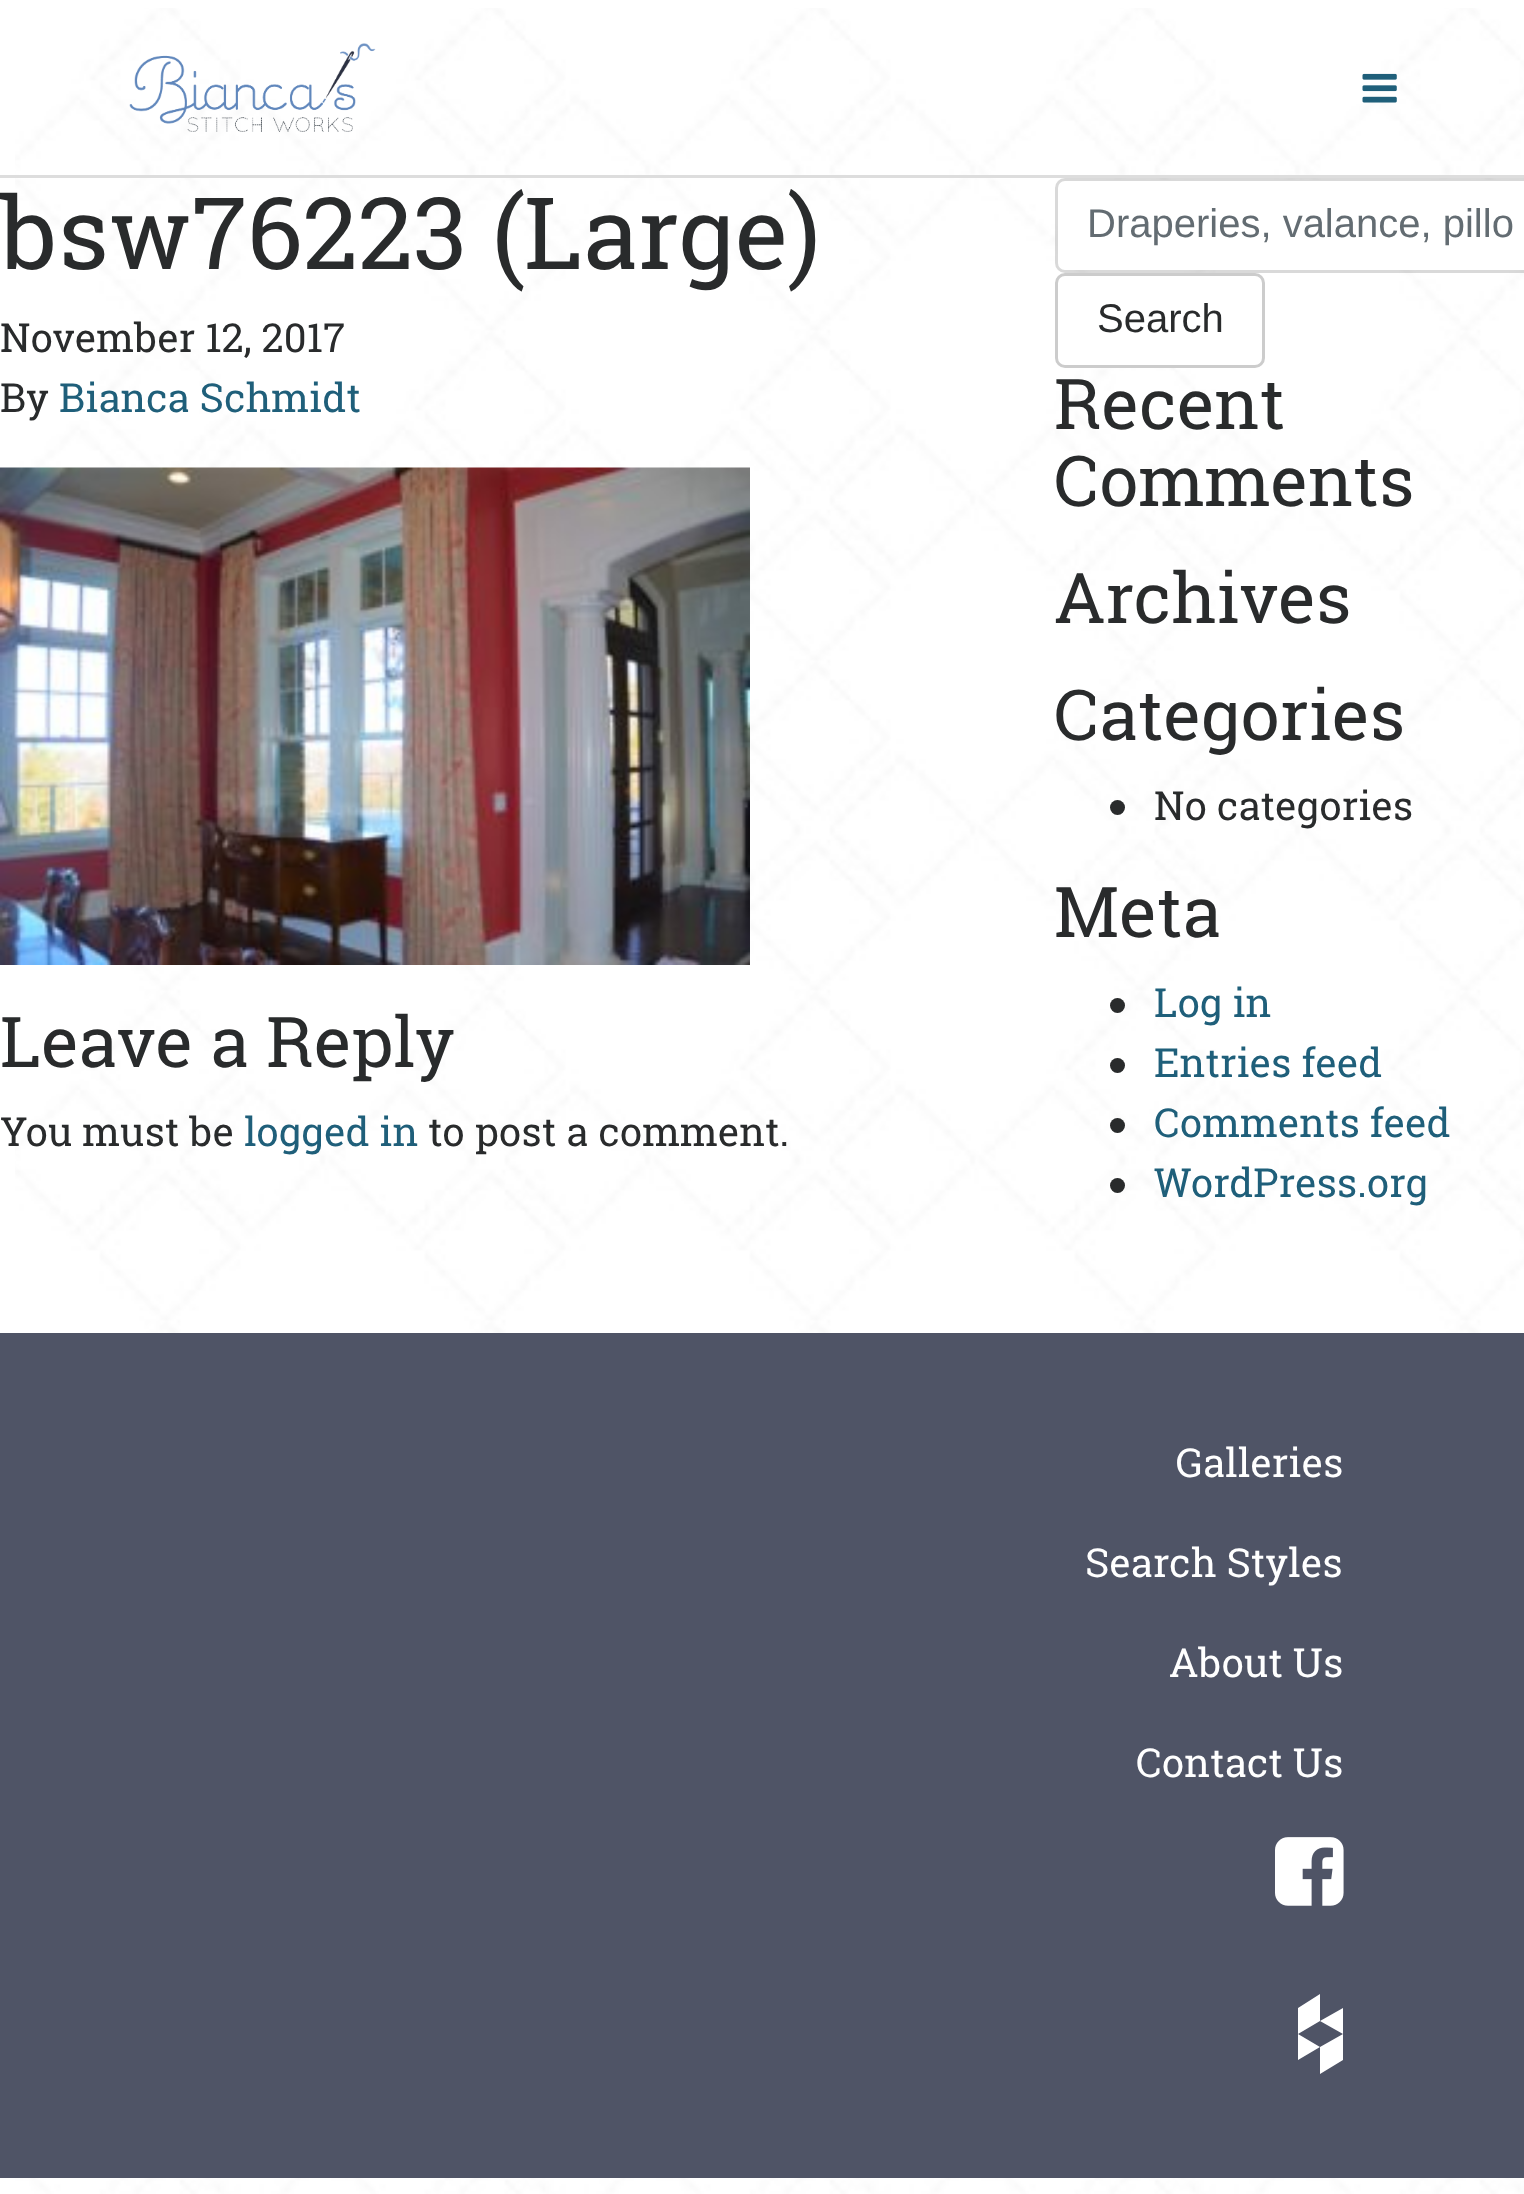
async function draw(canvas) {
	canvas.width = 1524;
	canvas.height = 2194;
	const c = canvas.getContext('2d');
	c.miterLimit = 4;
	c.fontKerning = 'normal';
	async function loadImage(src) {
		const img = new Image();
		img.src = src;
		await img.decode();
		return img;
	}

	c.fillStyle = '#fff';
	c.fillRect(0, 0, 1524, 2194);
	c.drawImage(await loadImage('img1.png'), 15, 8, 1509, 2186);
	c.fillStyle = '#ddd';
	c.fillRect(0, 175, 1524, 3);
	c.drawImage(await loadImage('img2.png'), 129, 43, 247, 89);
	c.drawImage(await loadImage('img3.png'), 1362, 73, 35, 30);
	c.font = '100px Roboto Slab';
	c.fillStyle = '#292b2c';
	c.fillText('bsw76223 (Large)', 0, 269);
	c.font = '40px Roboto Slab';
	c.fillText('November 12, 2017', 0, 352);
	c.fillText('By', 0, 412);
	c.fillStyle = '#1f5f7a';
	c.fillText('Bianca Schmidt', 59, 412);
	c.drawImage(await loadImage('img4.png'), 0, 467, 750, 498);
	c.font = '70px Roboto Slab';
	c.fillStyle = '#292b2c';
	c.fillText('Leave a Reply', 0, 1067);
	c.font = '40px Roboto Slab';
	c.fillText('You must be', 0, 1146);
	c.fillStyle = '#1f5f7a';
	c.fillText('logged in', 244, 1146);
	c.fillStyle = '#292b2c';
	c.fillText('to post a comment.', 428, 1146);
	c.fillStyle = '#fff';
	c.beginPath();
	c.roundRect(1058, 180, 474, 90, 8);
	c.fill();
	c.beginPath();
	c.roundRect(1056.5, 179.5, 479, 92, 8.5);
	c.strokeStyle = '#00000026';
	c.lineWidth = 3;
	c.stroke();
	c.font = '40px Liberation Sans';
	c.fillStyle = '#636c72';
	c.fillText('Draperies, valance, pillo', 1087, 237);
	c.fillStyle = '#fff';
	c.beginPath();
	c.roundRect(1056.5, 274.5, 207, 92, 8.5);
	c.fill();
	c.strokeStyle = '#ccc';
	c.stroke();
	c.fillStyle = '#292b2c';
	c.fillText('Search', 1097, 332);
	c.font = '70px Roboto Slab';
	for (const [text, x, y] of [
		['Recent', 1054, 429],
		['Comments', 1054, 506],
		['Archives', 1054, 623],
		['Categories', 1054, 740],
	]) {
		c.fillText(text, x, y);
	}
	c.beginPath();
	c.arc(1117.5, 807.5, 7.5, 0, 2 * Math.PI);
	c.fill();
	c.font = '40px Roboto Slab';
	c.fillText('No categories', 1154, 820);
	c.font = '70px Roboto Slab';
	c.fillText('Meta', 1054, 937);
	c.beginPath();
	c.arc(1117.5, 1005.5, 7.5, 0, 2 * Math.PI);
	c.fill();
	c.font = '40px Roboto Slab';
	c.fillStyle = '#1f5f7a';
	c.fillText('Log in', 1154, 1017);
	c.fillStyle = '#292b2c';
	c.beginPath();
	c.arc(1117.5, 1065.5, 7.5, 0, 2 * Math.PI);
	c.fill();
	c.fillStyle = '#1f5f7a';
	c.fillText('Entries feed', 1154, 1077);
	c.fillStyle = '#292b2c';
	c.beginPath();
	c.arc(1117.5, 1125.5, 7.5, 0, 2 * Math.PI);
	c.fill();
	c.fillStyle = '#1f5f7a';
	c.fillText('Comments feed', 1154, 1137);
	c.fillStyle = '#292b2c';
	c.beginPath();
	c.arc(1117.5, 1185.5, 7.5, 0, 2 * Math.PI);
	c.fill();
	c.fillStyle = '#1f5f7a';
	c.fillText('WordPress.org', 1154, 1197);
	c.fillStyle = '#4f5466';
	c.fillRect(0, 1333, 1524, 845);
	c.fillStyle = '#fff';
	for (const [text, x, y] of [
		['Galleries', 1176, 1477],
		['Search Styles', 1085, 1577],
		['About Us', 1169, 1677],
		['Contact Us', 1136, 1777],
	]) {
		c.fillText(text, x, y);
	}
	c.drawImage(await loadImage('img5.png'), 1275, 1837, 69, 69);
	c.beginPath();
	c.moveTo(1320, 2047);
	c.lineTo(1343, 2034);
	c.lineTo(1343, 2060);
	c.lineTo(1320, 2074);
	c.closePath();
	c.moveTo(1298, 2034);
	c.lineTo(1298, 2060);
	c.lineTo(1320, 2047);
	c.closePath();
	c.moveTo(1320, 1994);
	c.lineTo(1320, 2021);
	c.lineTo(1298, 2034);
	c.lineTo(1298, 2008);
	c.closePath();
	c.moveTo(1320, 2021);
	c.lineTo(1343, 2008);
	c.lineTo(1343, 2034);
	c.closePath();
	c.fill();
}

draw(document.querySelector('canvas'));
